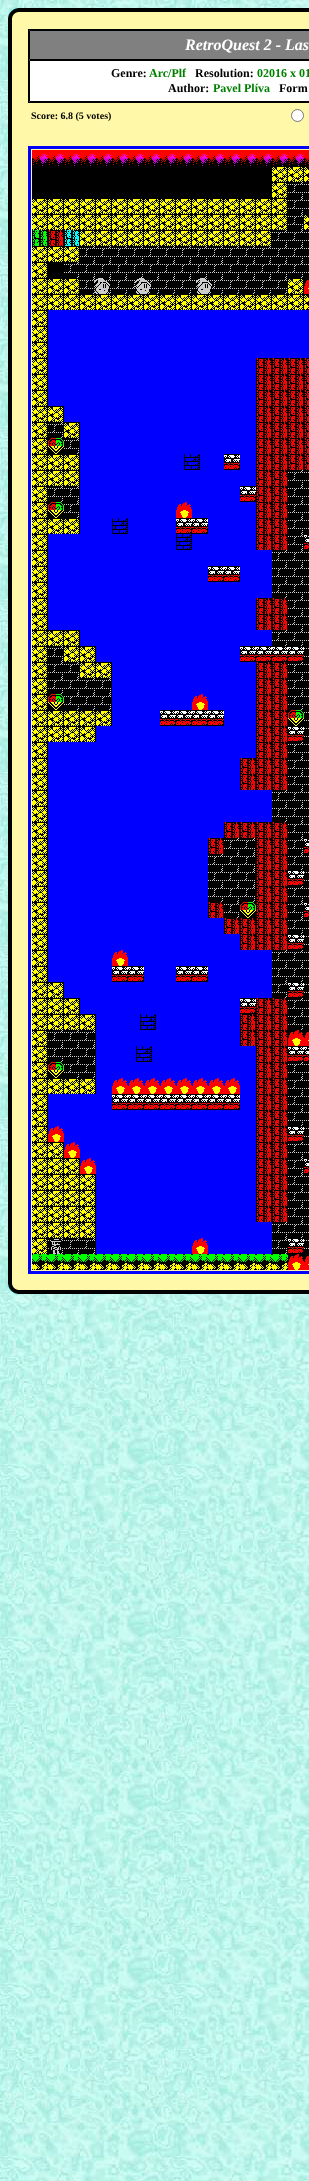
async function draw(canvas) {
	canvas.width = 309;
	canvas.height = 2181;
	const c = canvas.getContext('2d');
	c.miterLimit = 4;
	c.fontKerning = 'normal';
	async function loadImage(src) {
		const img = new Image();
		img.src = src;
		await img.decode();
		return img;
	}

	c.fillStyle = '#fff';
	c.fillRect(0, 0, 309, 2181);
	c.drawImage(await loadImage('img1.png'), 0, 0, 309, 2181);
	c.fillStyle = '#fff8a8';
	c.fillRect(12, 12, 297, 1278);
	c.drawImage(await loadImage('img2.png'), 8, 8, 6, 6);
	c.drawImage(await loadImage('img3.png'), 8, 8, 10, 10);
	c.fillStyle = '#000';
	c.fillRect(18, 8, 291, 4);
	c.fillRect(8, 18, 4, 1266);
	c.strokeStyle = '#000';
	c.strokeRect(28.5, 29.5, 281, 73);
	c.fillStyle = '#808080';
	c.beginPath();
	c.rect(29.5, 30.5, 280, 29);
	c.fill();
	c.stroke();
	c.font = 'italic bold 16px Liberation Serif';
	c.fillStyle = '#fff';
	c.fillText('RetroQuest 2 - Las', 185, 50);
	c.beginPath();
	c.rect(29.5, 60.5, 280, 41);
	c.fill();
	c.stroke();
	c.font = 'bold 12px Liberation Serif';
	c.fillStyle = '#000';
	c.fillText('Genre:', 111, 77);
	c.fillStyle = '#008000';
	c.fillText('Arc/Plf', 149, 77);
	c.fillStyle = '#000';
	c.fillText('Resolution:', 195, 77);
	c.fillStyle = '#008000';
	c.fillText('02016 x 01', 257, 77);
	c.fillStyle = '#000';
	c.fillText('Author:', 168, 92);
	c.fillStyle = '#008000';
	c.fillText('Pavel Plíva', 213, 92);
	c.fillStyle = '#000';
	c.fillText('Form', 279, 92);
	c.font = 'bold 10px Liberation Serif';
	c.fillText('Score: 6.8 (5 votes)', 31, 119);
	c.fillStyle = '#fff';
	c.beginPath();
	c.arc(297.5, 115.5, 6, 0, 2 * Math.PI);
	c.fill();
	c.strokeStyle = '#767676';
	c.stroke();
	c.strokeStyle = '#00f';
	c.lineWidth = 3;
	c.strokeRect(29.5, 147.5, 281, 1125);
	c.drawImage(await loadImage('img4.png'), 32, 150, 277, 1120);
	c.drawImage(await loadImage('img5.png'), 8, 1288, 6, 6);
	c.drawImage(await loadImage('img6.png'), 8, 1284, 10, 10);
	c.fillStyle = '#000';
	c.fillRect(18, 1290, 291, 4);
}

draw(document.querySelector('canvas'));
